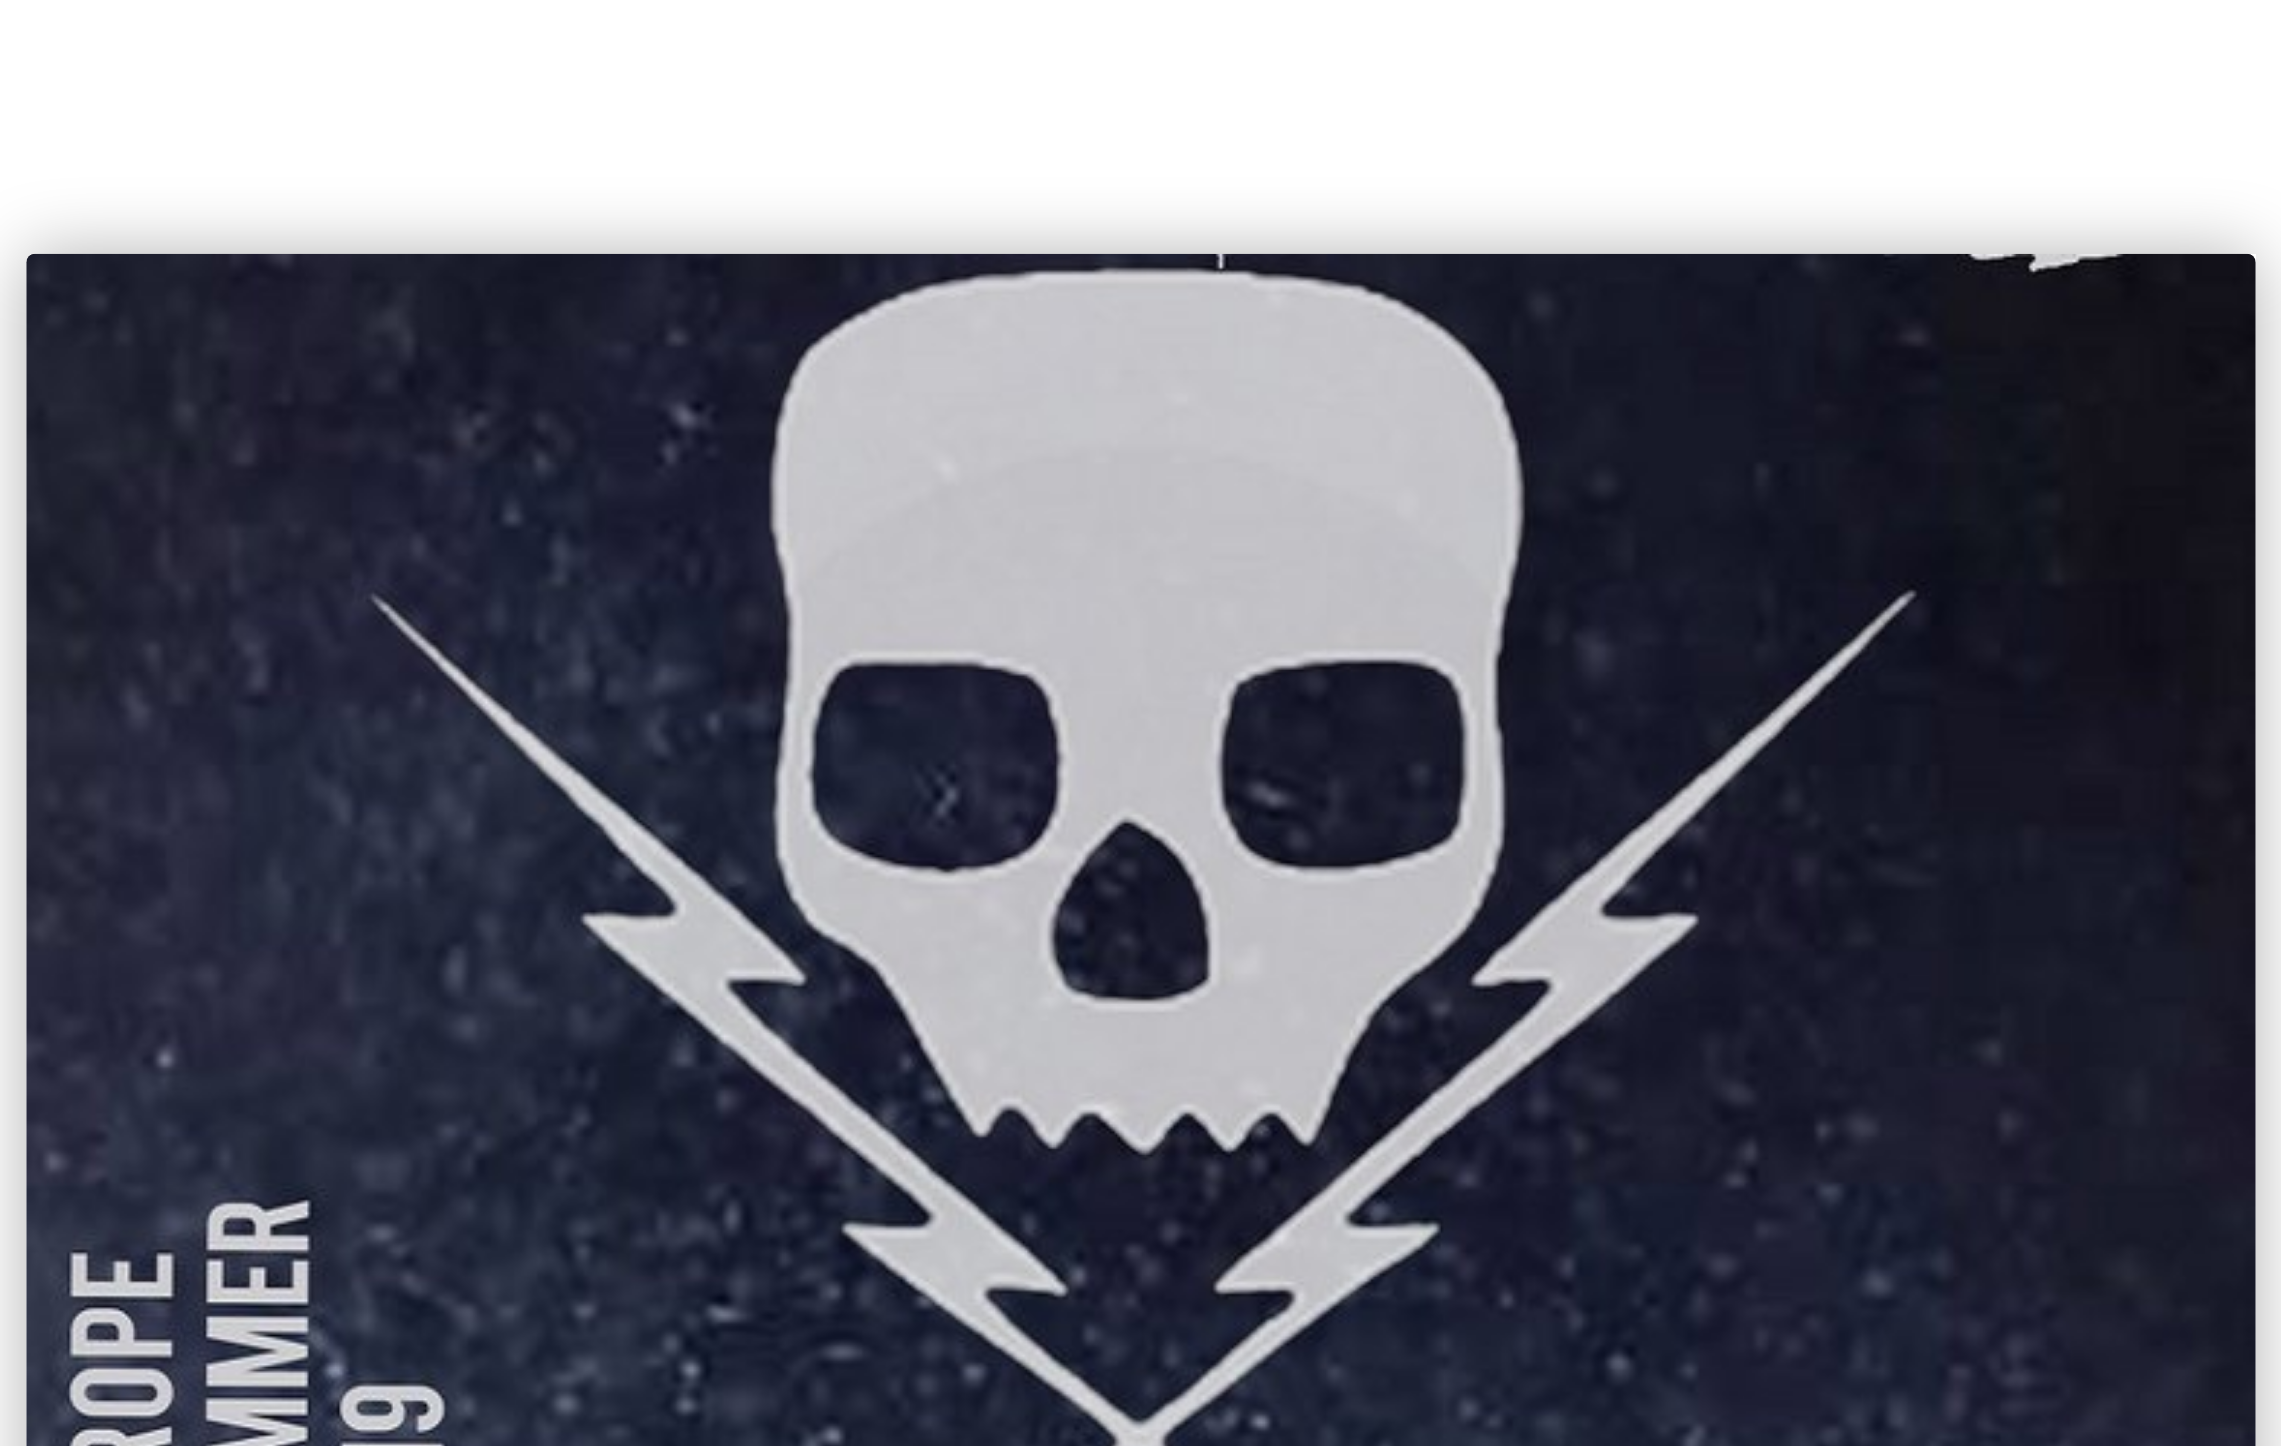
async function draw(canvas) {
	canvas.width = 2281;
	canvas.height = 1446;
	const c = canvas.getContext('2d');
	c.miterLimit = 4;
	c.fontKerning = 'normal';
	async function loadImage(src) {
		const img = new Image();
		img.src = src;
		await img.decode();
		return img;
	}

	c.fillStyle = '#fff';
	c.fillRect(0, 0, 2281, 1446);
	c.save();
	c.beginPath();
	c.moveTo(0, 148);
	c.lineTo(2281, 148);
	c.lineTo(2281, 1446);
	c.lineTo(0, 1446);
	c.closePath();
	c.moveTo(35, 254);
	c.lineTo(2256, 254);
	c.lineTo(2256, 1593);
	c.lineTo(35, 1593);
	c.bezierCurveTo(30, 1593, 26, 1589, 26, 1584);
	c.lineTo(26, 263);
	c.bezierCurveTo(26, 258, 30, 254, 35, 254);
	c.closePath();
	c.clip('evenodd');
	c.fillStyle = '#0000004d';
	c.filter = 'blur(35px)';
	c.beginPath();
	c.roundRect(26, 254, 2230, 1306, 9);
	c.fill();
	c.filter = 'none';
	c.restore();
	c.drawImage(await loadImage('img1.png'), 26, 253, 2230, 1193);
}

draw(document.querySelector('canvas'));
